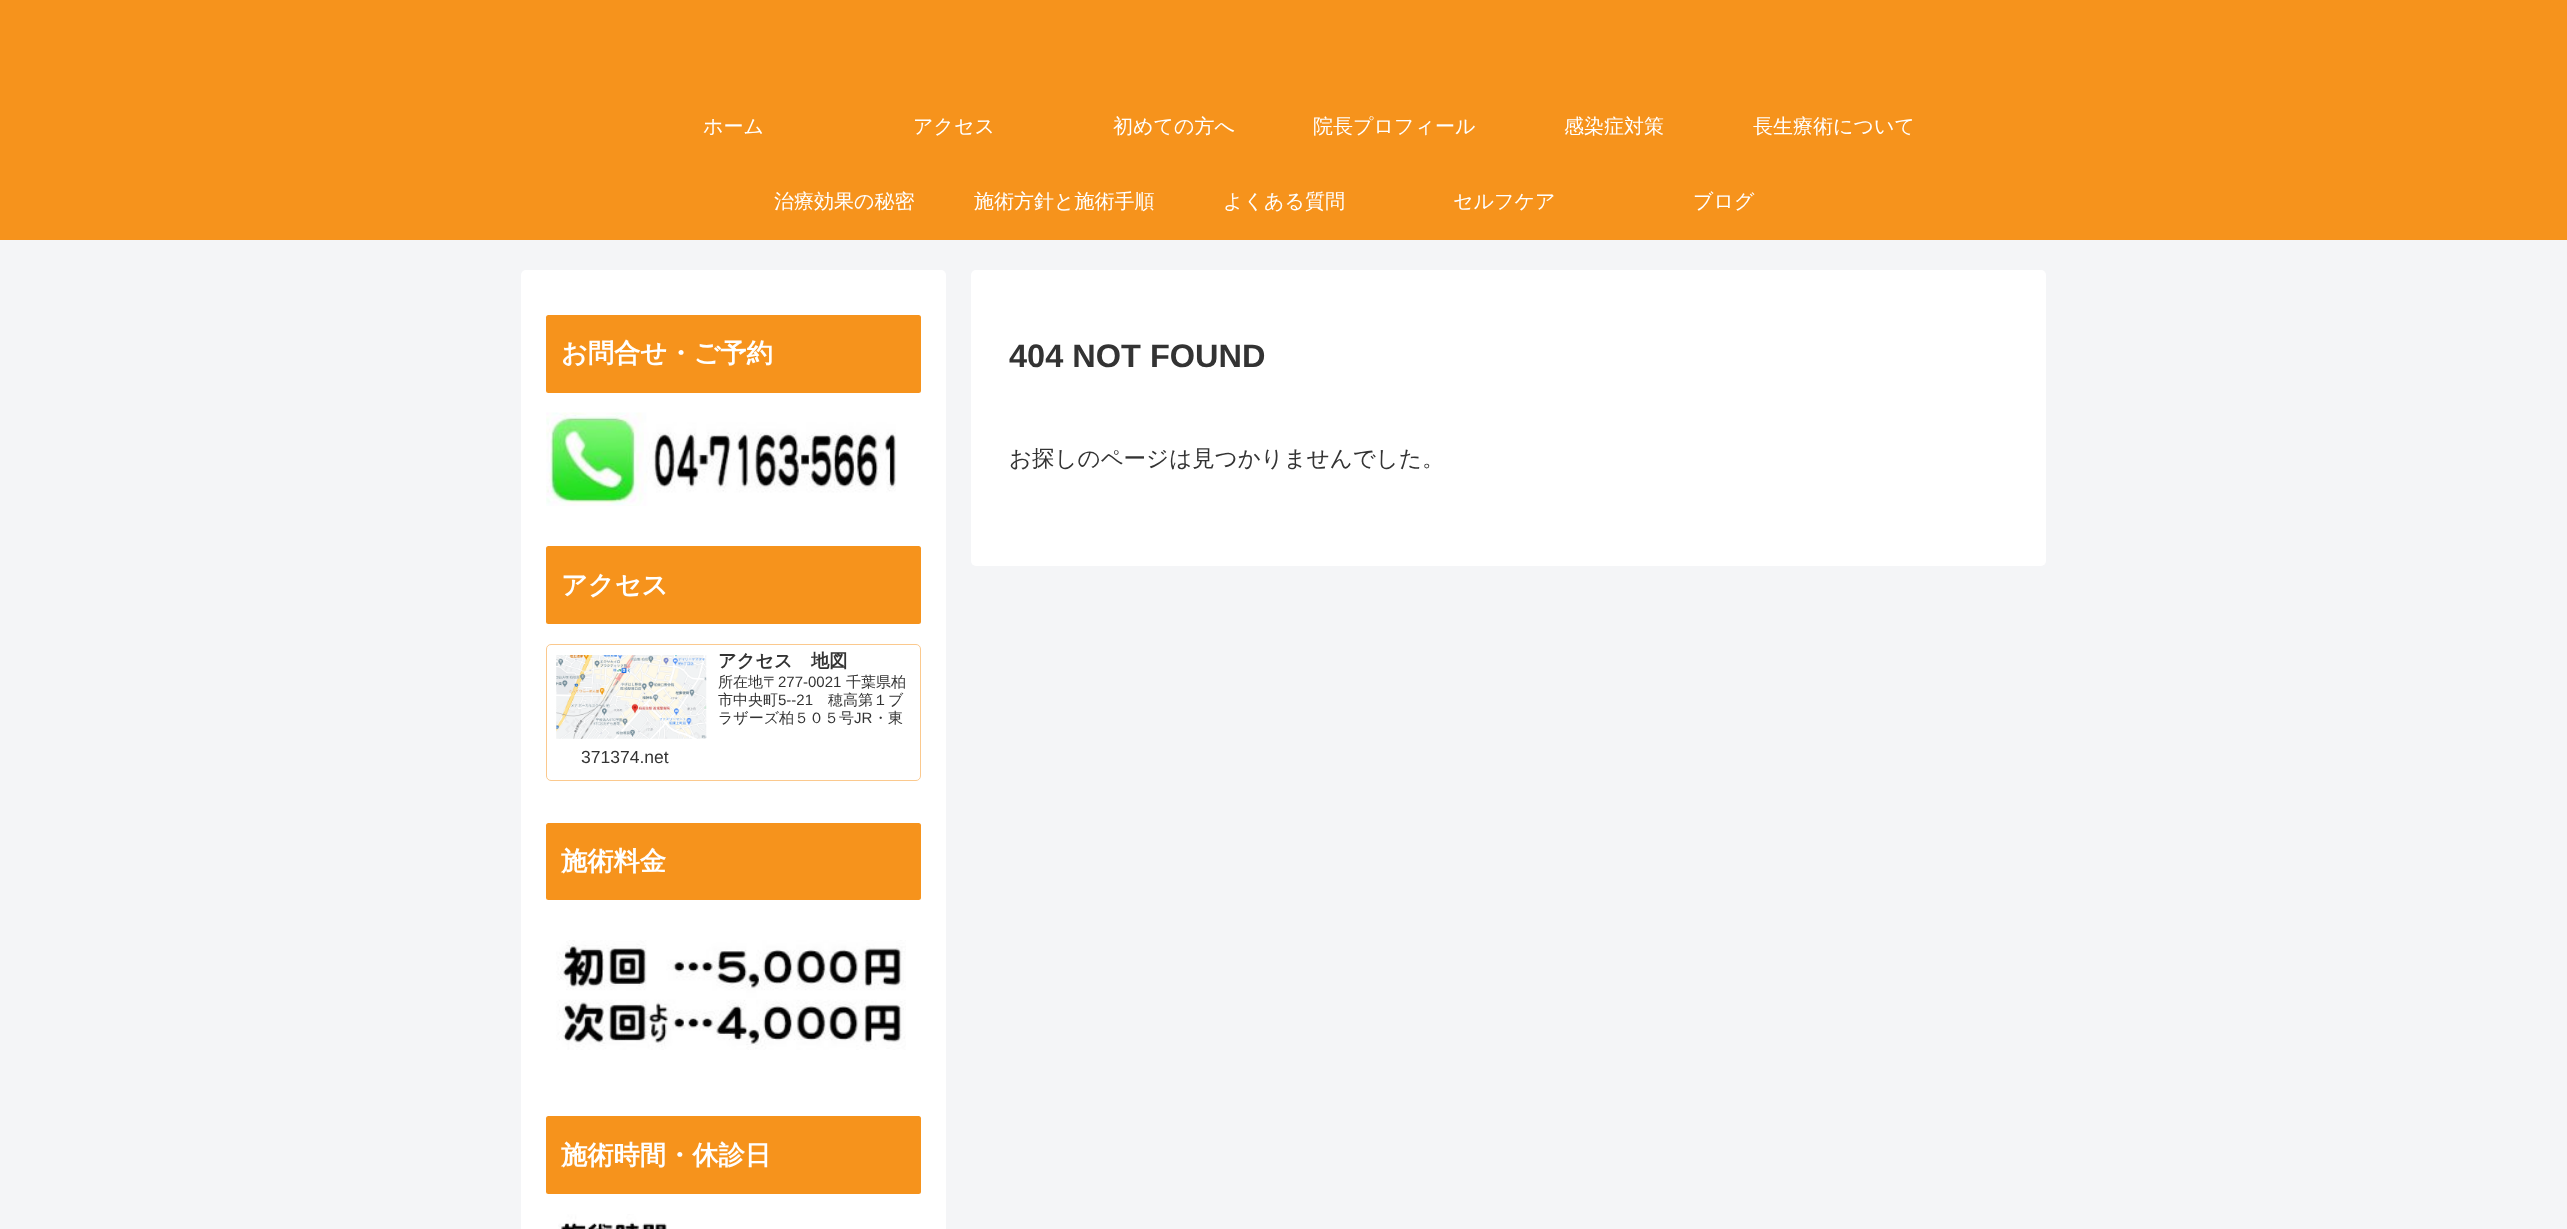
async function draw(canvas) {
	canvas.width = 2567;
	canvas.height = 1229;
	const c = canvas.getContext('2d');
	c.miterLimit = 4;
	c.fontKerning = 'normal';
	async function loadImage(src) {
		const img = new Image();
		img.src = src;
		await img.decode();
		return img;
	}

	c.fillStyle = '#f4f5f7';
	c.fillRect(0, 0, 2567, 1229);
	c.fillStyle = '#f6931c';
	c.fillRect(0, 0, 2567, 240);
	c.font = '500 20px WenQuanYi Zen Hei';
	c.fillStyle = '#fff';
	for (const [text, x, y] of [
		['ホーム', 703, 133],
		['アクセス', 913, 133],
		['初めての方へ', 1113, 133],
		['院長プロフィール', 1313, 133],
		['感染症対策', 1564, 133],
		['長生療術について', 1753, 133],
		['治療効果の秘密', 774, 208],
		['施術方針と施術手順', 974, 208],
		['よくある質問', 1223, 208],
		['セルフケア', 1453, 208],
		['ブログ', 1693, 208],
	]) {
		c.fillText(text, x, y);
	}
	c.beginPath();
	c.roundRect(521, 270, 425, 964, 5);
	c.fill();
	c.fillStyle = '#f6931c';
	c.beginPath();
	c.roundRect(546, 315, 375, 78, 2.5);
	c.fill();
	c.font = 'bold 26.25px WenQuanYi Zen Hei';
	c.fillStyle = '#fff';
	c.fillText('お問合せ・ご予約', 561, 362);
	c.drawImage(await loadImage('img1.png'), 546, 412, 350, 94);
	c.fillStyle = '#f6931c';
	c.beginPath();
	c.roundRect(546, 546, 375, 78, 2.5);
	c.fill();
	c.fillStyle = '#fff';
	c.fillText('アクセス', 561, 594);
	c.beginPath();
	c.roundRect(546.5, 644.5, 374, 136, 4.5);
	c.strokeStyle = '#fbc98e';
	c.stroke();
	c.drawImage(await loadImage('img2.png'), 556, 655, 151, 84);
	c.font = 'bold 18.25px WenQuanYi Zen Hei';
	c.fillStyle = '#333';
	c.fillText('アクセス　地図', 718, 667);
	c.font = '500 15px WenQuanYi Zen Hei';
	c.fillText('所在地〒', 718, 687);
	c.font = '15px Liberation Sans';
	c.fillText('277-0021', 778, 687);
	c.font = '500 15px WenQuanYi Zen Hei';
	c.fillText('千葉県柏', 846, 687);
	c.fillText('市中央町', 718, 705);
	c.font = '15px Liberation Sans';
	c.fillText('5--21', 778, 705);
	c.font = '500 15px WenQuanYi Zen Hei';
	c.fillText('穂高第１ブ', 828, 705);
	c.fillText('ラザーズ柏５０５号', 718, 723);
	c.font = '15px Liberation Sans';
	c.fillText('JR', 854, 723);
	c.font = '500 15px WenQuanYi Zen Hei';
	c.fillText('・東', 873, 723);
	c.font = '17.5px Liberation Sans';
	c.fillText('371374.net', 581, 763);
	c.fillStyle = '#f6931c';
	c.beginPath();
	c.roundRect(546, 823, 375, 77, 2.5);
	c.fill();
	c.font = 'bold 26.25px WenQuanYi Zen Hei';
	c.fillStyle = '#fff';
	c.fillText('施術料金', 561, 870);
	c.drawImage(await loadImage('img3.png'), 556, 940, 350, 110);
	c.fillStyle = '#f6931c';
	c.beginPath();
	c.roundRect(546, 1116, 375, 78, 2.5);
	c.fill();
	c.fillStyle = '#fff';
	c.fillText('施術時間・休診日', 561, 1164);
	c.drawImage(await loadImage('img4.png'), 558, 1214, 109, 15);
	c.beginPath();
	c.roundRect(971, 270, 1075, 296, 5);
	c.fill();
	c.font = 'bold 32.5px Liberation Sans';
	c.fillStyle = '#333';
	c.fillText('404 NOT FOUND', 1009, 367);
	c.font = '500 22.5px WenQuanYi Zen Hei';
	c.fillText('お探しのページは見つかりませんでした。', 1009, 466);
}

draw(document.querySelector('canvas'));
